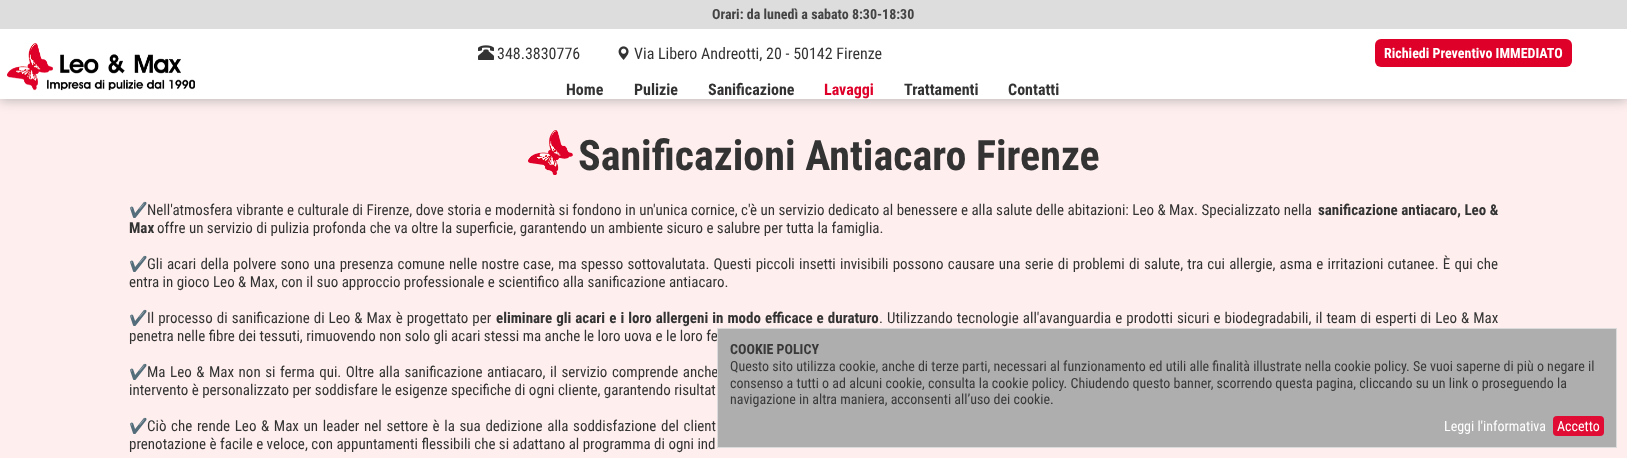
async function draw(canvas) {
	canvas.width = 1627;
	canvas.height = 458;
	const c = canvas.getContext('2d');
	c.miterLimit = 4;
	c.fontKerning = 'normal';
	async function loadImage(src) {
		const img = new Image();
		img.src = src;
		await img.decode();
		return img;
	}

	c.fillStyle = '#fee';
	c.fillRect(0, 0, 1627, 458);
	c.fillStyle = '#a0a0a0ad';
	c.filter = 'blur(5.5px)';
	c.beginPath();
	c.rect(0, 2, 1627, 99);
	c.fill();
	c.filter = 'none';
	c.fillStyle = '#fff';
	c.fillRect(0, 29, 1627, 70);
	c.fillStyle = '#ddd';
	c.fillRect(0, 0, 1627, 29);
	c.font = 'bold 14px Roboto Condensed';
	c.fillStyle = '#444';
	c.fillText('Orari: da lunedì a sabato 8:30-18:30', 712, 19);
	c.drawImage(await loadImage('img1.png'), 7, 43, 188, 48);
	c.drawImage(await loadImage('img2.png'), 478, 45, 16, 15);
	c.font = '16px Roboto Condensed';
	c.fillStyle = '#333';
	c.fillText('348.3830776', 497, 59);
	c.drawImage(await loadImage('img3.png'), 618, 46, 11, 14);
	c.fillText('Via Libero Andreotti, 20 - 50142 Firenze', 634, 59);
	c.fillStyle = '#de0029';
	c.beginPath();
	c.roundRect(1375, 39, 197, 28, 6);
	c.fill();
	c.font = 'bold 14px Roboto Condensed';
	c.fillStyle = '#fff';
	c.fillText('Richiedi Preventivo IMMEDIATO', 1384, 58);
	c.font = 'bold 16px Roboto Condensed';
	c.fillStyle = '#333';
	for (const [text, x, y] of [
		['Home', 566, 95],
		['Pulizie', 634, 95],
		['Sanificazione', 708, 95],
	]) {
		c.fillText(text, x, y);
	}
	c.fillStyle = '#de0029';
	c.fillText('Lavaggi', 824, 95);
	c.fillStyle = '#333';
	c.fillText('Trattamenti', 904, 95);
	c.fillText('Contatti', 1008, 95);
	c.drawImage(await loadImage('img4.png'), 528, 130, 45, 45);
	c.font = 'bold 42px Roboto Condensed';
	c.fillText('Sanificazioni Antiacaro Firenze', 578, 170);
	c.font = '15px Noto Color Emoji';
	c.fillText('✔️', 129, 215);
	c.font = '15px Roboto Condensed';
	c.fillText('Nell\'atmosfera vibrante e culturale di Firenze, dove storia e modernità si fondono in un\'unica cornice, c\'è un servizio dedicato al benessere e alla salute delle abitazioni: Leo & Max. Specializzato nella', 147, 215);
	c.font = 'bold 15px Roboto Condensed';
	c.fillText('sanificazione antiacaro, Leo &', 1318, 215);
	c.fillText('Max', 129, 233);
	c.font = '15px Roboto Condensed';
	c.fillText('offre un servizio di pulizia profonda che va oltre la superficie, garantendo un ambiente sicuro e salubre per tutta la famiglia.', 157, 233);
	c.font = '15px Noto Color Emoji';
	c.fillText('✔️', 129, 269);
	c.wordSpacing = '0.75px';
	c.font = '15px Roboto Condensed';
	c.fillText('Gli acari della polvere sono una presenza comune nelle nostre case, ma spesso sottovalutata. Questi piccoli insetti invisibili possono causare una serie di problemi di salute, tra cui allergie, asma e irritazioni cutanee. È qui che', 147, 269);
	c.wordSpacing = '0px';
	c.fillText('entra in gioco Leo & Max, con il suo approccio professionale e scientifico alla sanificazione antiacaro.', 129, 287);
	c.font = '15px Noto Color Emoji';
	c.fillText('✔️', 129, 323);
	c.wordSpacing = '0.6px';
	c.font = '15px Roboto Condensed';
	c.fillText('Il processo di sanificazione di Leo & Max è progettato per', 147, 323);
	c.font = 'bold 15px Roboto Condensed';
	c.fillText('eliminare gli acari e i loro allergeni in modo efficace e duraturo', 496, 323);
	c.font = '15px Roboto Condensed';
	c.fillText('. Utilizzando tecnologie all\'avanguardia e prodotti sicuri e biodegradabili, il team di esperti di Leo & Max', 879, 323);
	c.wordSpacing = '0px';
	c.fillText('penetra nelle fibre dei tessuti, rimuovendo non solo gli acari stessi ma anche le loro uova e le loro fe', 129, 341);
	c.font = '15px Noto Color Emoji';
	c.fillText('✔️', 129, 377);
	c.wordSpacing = '1.1px';
	c.font = '15px Roboto Condensed';
	c.fillText('Ma Leo & Max non si ferma qui. Oltre alla sanificazione antiacaro, il servizio comprende anche', 147, 377);
	c.wordSpacing = '0px';
	c.fillText('intervento è personalizzato per soddisfare le esigenze specifiche di ogni cliente, garantendo risultat', 129, 395);
	c.font = '15px Noto Color Emoji';
	c.fillText('✔️', 129, 431);
	c.wordSpacing = '1.2px';
	c.font = '15px Roboto Condensed';
	c.fillText('Ciò che rende Leo & Max un leader nel settore è la sua dedizione alla soddisfazione del client', 147, 431);
	c.wordSpacing = '0px';
	c.fillText('prenotazione è facile e veloce, con appuntamenti flessibili che si adattano al programma di ogni ind', 129, 449);
	c.fillStyle = '#aaaaaaf2';
	c.fillRect(717, 328, 900, 120);
	c.strokeStyle = '#ddddddf2';
	c.strokeRect(717.5, 328.5, 899, 119);
	c.font = 'bold 14px Roboto Condensed';
	c.fillStyle = '#393939';
	c.fillText('COOKIE POLICY', 730, 354);
	c.font = '14px Roboto Condensed';
	for (const [text, x, y] of [
		['Questo sito utilizza cookie, anche di terze parti, necessari al funzionamento ed utili alle finalità illustrate nella cookie policy. Se vuoi saperne di più o negare il', 730, 371],
		['consenso a tutti o ad alcuni cookie, consulta la cookie policy. Chiudendo questo banner, scorrendo questa pagina, cliccando su un link o proseguendo la', 730, 388],
		['navigazione in altra maniera, acconsenti all’uso dei cookie.', 730, 404],
	]) {
		c.fillText(text, x, y);
	}
	c.fillStyle = '#fff';
	c.fillText('Leggi l\'informativa', 1444, 431);
	c.fillStyle = '#e00c33';
	c.beginPath();
	c.roundRect(1553, 416, 51, 20, 4);
	c.fill();
	c.fillStyle = '#fff';
	c.fillText('Accetto', 1557, 431);
}

draw(document.querySelector('canvas'));
